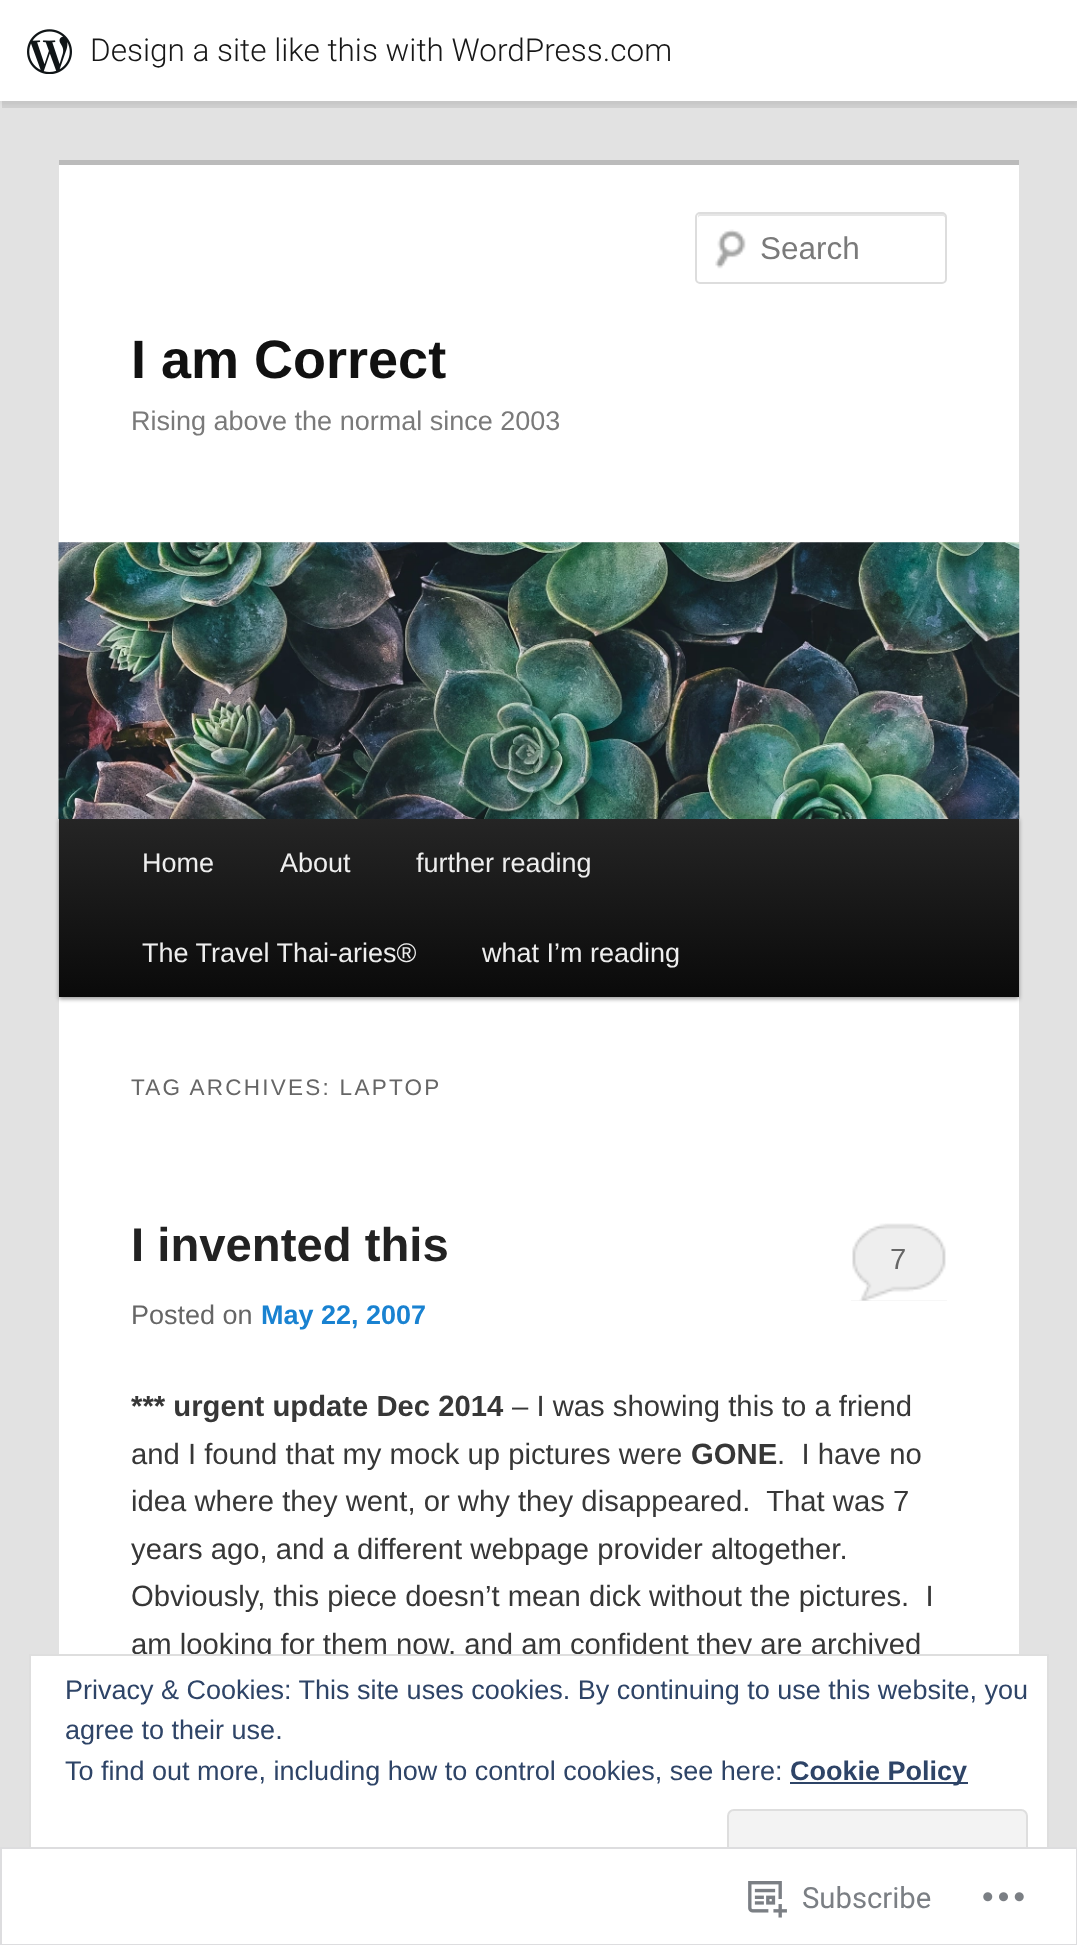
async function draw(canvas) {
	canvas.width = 1077;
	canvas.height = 1945;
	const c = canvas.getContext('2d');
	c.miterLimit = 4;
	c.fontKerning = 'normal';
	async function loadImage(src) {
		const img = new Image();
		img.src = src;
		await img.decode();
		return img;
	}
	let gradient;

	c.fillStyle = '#e2e2e2';
	c.fillRect(0, 0, 1077, 1945);
	c.fillStyle = '#0000000d';
	c.filter = 'blur(2px)';
	c.beginPath();
	c.rect(0, 2, 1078, 102);
	c.fill();
	c.filter = 'none';
	c.fillStyle = '#00000014';
	c.beginPath();
	c.moveTo(2, 101);
	c.lineTo(2, 108);
	c.lineTo(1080, 108);
	c.lineTo(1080, 7);
	c.lineTo(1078, 7);
	c.lineTo(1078, 101);
	c.closePath();
	c.fill();
	c.fillStyle = '#fff';
	c.fillRect(0, 0, 1077, 101);
	c.drawImage(await loadImage('img1.png'), 27, 29, 45, 45);
	c.font = '300 31.5px Roboto';
	c.fillStyle = '#171717';
	c.fillText('Design a site like this with WordPress.com', 90, 61);
	c.fillStyle = '#fff';
	c.fillRect(59, 165, 960, 1780);
	c.fillStyle = '#bbb';
	c.fillRect(59, 160, 960, 5);
	c.drawImage(await loadImage('img2.png'), 715, 229, 31, 40);
	c.fillStyle = '#e6e6e6';
	c.beginPath();
	c.moveTo(700, 216);
	c.lineTo(943, 216);
	c.bezierCurveTo(944, 216, 945, 217, 945, 218);
	c.bezierCurveTo(945, 216, 945, 214, 943, 214);
	c.lineTo(700, 214);
	c.bezierCurveTo(698, 214, 698, 216, 698, 218);
	c.bezierCurveTo(698, 217, 699, 216, 700, 216);
	c.closePath();
	c.fill();
	c.beginPath();
	c.roundRect(696, 213, 250, 70, 4);
	c.strokeStyle = '#ddd';
	c.lineWidth = 2;
	c.stroke();
	c.font = '31.5px Liberation Sans';
	c.fillStyle = '#7a7a7a';
	c.fillText('Search', 760, 259);
	c.font = 'bold 54px Liberation Sans';
	c.fillStyle = '#111';
	c.fillText('I am Correct', 131, 378);
	c.font = '27px Liberation Sans';
	c.fillStyle = '#7a7a7a';
	c.fillText('Rising above the normal since 2003', 131, 430);
	c.fillStyle = '#00000066';
	c.filter = 'blur(2px)';
	c.beginPath();
	c.rect(59, 819, 960, 180);
	c.fill();
	c.filter = 'none';
	c.drawImage(await loadImage('img3.png'), 58, 542, 962, 277);
	gradient = c.createLinearGradient(539, 817, 539, 997);
	gradient.addColorStop(0, '#252525');
	gradient.addColorStop(1, '#0a0a0a');
	c.fillStyle = gradient;
	c.fillRect(59, 819, 960, 178);
	c.fillStyle = '#eee';
	for (const [text, x, y] of [
		['Home', 142, 872],
		['About', 280, 872],
		['further reading', 416, 872],
		['The Travel Thai-aries®', 142, 962],
		['what I’m reading', 482, 962],
	]) {
		c.fillText(text, x, y);
	}
	c.letterSpacing = '2.25px';
	c.font = '22.5px Liberation Sans';
	c.fillStyle = '#666';
	c.fillText('TAG ARCHIVES: LAPTOP', 131, 1095);
	c.letterSpacing = '0px';
	c.font = 'bold 47.25px Liberation Sans';
	c.fillStyle = '#222';
	c.fillText('I invented this', 131, 1261);
	c.fillStyle = '#eee';
	c.fillRect(851, 1223, 96, 78);
	c.drawImage(await loadImage('img4.png'), 851, 1220, 96, 81);
	c.font = '29.25px Liberation Sans';
	c.fillStyle = '#666';
	c.fillText('7', 890, 1269);
	c.font = '27px Liberation Sans';
	c.fillText('Posted on', 131, 1324);
	c.font = 'bold 27px Liberation Sans';
	c.fillStyle = '#1982d1';
	c.fillText('May 22, 2007', 261, 1324);
	c.font = 'bold 29.25px Liberation Sans';
	c.fillStyle = '#373737';
	c.fillText('*** urgent update Dec 2014', 131, 1416);
	c.font = '29.25px Liberation Sans';
	c.fillText('– I was showing this to a friend', 512, 1416);
	c.fillText('and I found that my mock up pictures were', 131, 1464);
	c.font = 'bold 29.25px Liberation Sans';
	c.fillText('GONE', 691, 1464);
	c.font = '29.25px Liberation Sans';
	for (const [text, x, y] of [
		['.  I have no', 777, 1464],
		['idea where they went, or why they disappeared.  That was 7', 131, 1511],
		['years ago, and a different webpage provider altogether.', 131, 1559],
		['Obviously, this piece doesn’t mean dick without the pictures.  I', 131, 1606],
		['am looking for them now, and am confident they are archived', 131, 1654],
	]) {
		c.fillText(text, x, y);
	}
	c.fillStyle = '#fff';
	c.beginPath();
	c.rect(30, 1655, 1018, 261);
	c.fill();
	c.strokeStyle = '#dedede';
	c.stroke();
	c.font = '27px Liberation Sans';
	c.fillStyle = '#2e4467';
	for (const [text, x, y] of [
		['Privacy & Cookies: This site uses cookies. By continuing to use this website, you', 65, 1699],
		['agree to their use.', 65, 1739],
		['To find out more, including how to control cookies, see here:', 65, 1780],
	]) {
		c.fillText(text, x, y);
	}
	c.fillRect(790, 1782, 178, 2);
	c.font = 'bold 27px Liberation Sans';
	c.fillText('Cookie Policy', 790, 1780);
	c.fillStyle = '#f3f3f3';
	c.beginPath();
	c.roundRect(728, 1810, 299, 86, 6);
	c.fill();
	c.stroke();
	c.fillStyle = '#fffffffa';
	c.fillRect(0, 1847, 1077, 98);
	c.strokeStyle = '#dcdcdefa';
	c.strokeRect(1, 1848, 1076, 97);
	c.drawImage(await loadImage('img5.png'), 748, 1881, 39, 37);
	c.font = '29.25px Roboto';
	c.fillStyle = '#7b7f84';
	c.fillText('Subscribe', 802, 1908);
	c.drawImage(await loadImage('img6.png'), 983, 1892, 41, 10);
}

draw(document.querySelector('canvas'));
